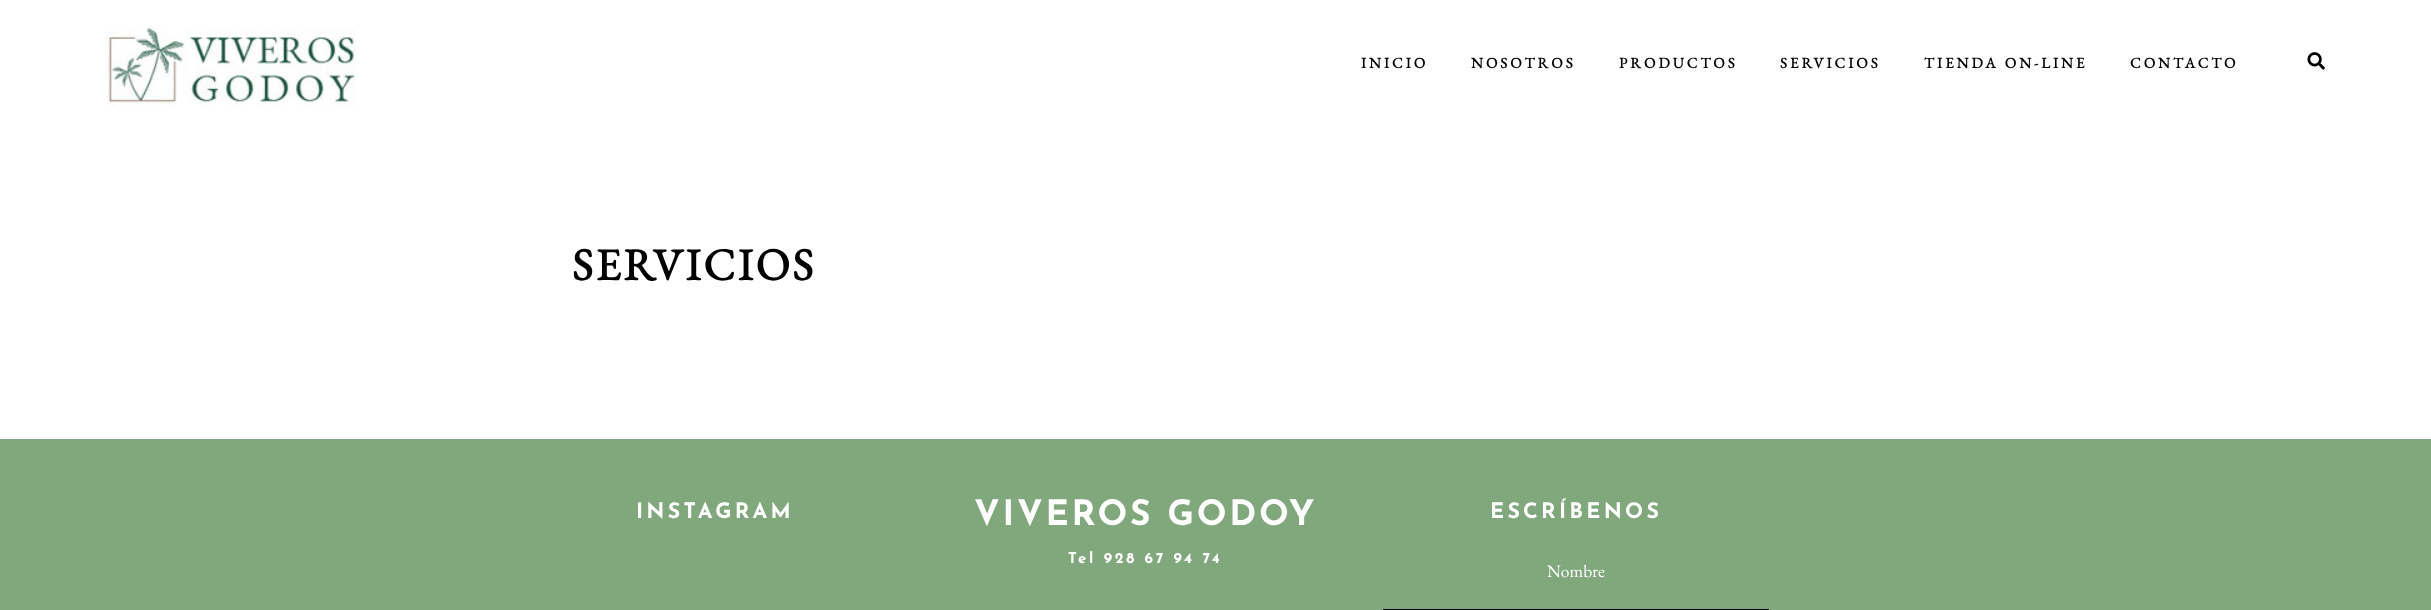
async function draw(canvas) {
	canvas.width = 2431;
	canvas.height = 610;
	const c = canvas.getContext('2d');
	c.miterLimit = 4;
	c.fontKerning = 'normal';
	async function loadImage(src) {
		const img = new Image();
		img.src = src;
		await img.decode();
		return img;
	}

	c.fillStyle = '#fff';
	c.fillRect(0, 0, 2431, 610);
	c.drawImage(await loadImage('img1.png'), 106, 25, 250, 83);
	c.letterSpacing = '3px';
	c.font = 'bold 15px EB Garamond';
	c.fillStyle = '#000';
	for (const [text, x, y] of [
		['INICIO', 1361, 68],
		['NOSOTROS', 1471, 68],
		['PRODUCTOS', 1619, 68],
		['SERVICIOS', 1780, 68],
		['TIENDA ON-LINE', 1924, 68],
		['CONTACTO', 2130, 68],
	]) {
		c.fillText(text, x, y);
	}
	c.drawImage(await loadImage('img2.png'), 2307, 52, 18, 18);
	c.letterSpacing = '2.5px';
	c.font = 'bold 45px EB Garamond';
	c.fillText('SERVICIOS', 572, 280);
	c.fillStyle = '#80a87c';
	c.fillRect(0, 439, 2431, 171);
	c.letterSpacing = '3.25px';
	c.font = 'bold 21.25px Josefin Sans';
	c.fillStyle = '#fff';
	c.fillText('INSTAGRAM', 636, 518);
	c.letterSpacing = '2.75px';
	c.font = 'bold 35px Josefin Sans';
	c.fillText('VIVEROS GODOY', 974, 525);
	c.font = 'bold 15px Josefin Sans';
	c.fillText('Tel 928 67 94 74', 1068, 563);
	c.letterSpacing = '3.25px';
	c.font = 'bold 21.25px Josefin Sans';
	c.fillText('ESCRÍBENOS', 1490, 518);
	c.letterSpacing = '0px';
	c.font = '17.5px EB Garamond';
	c.fillText('Nombre', 1547, 577);
	c.fillStyle = '#000';
	c.fillRect(1383, 609, 386, 1);
}

draw(document.querySelector('canvas'));
